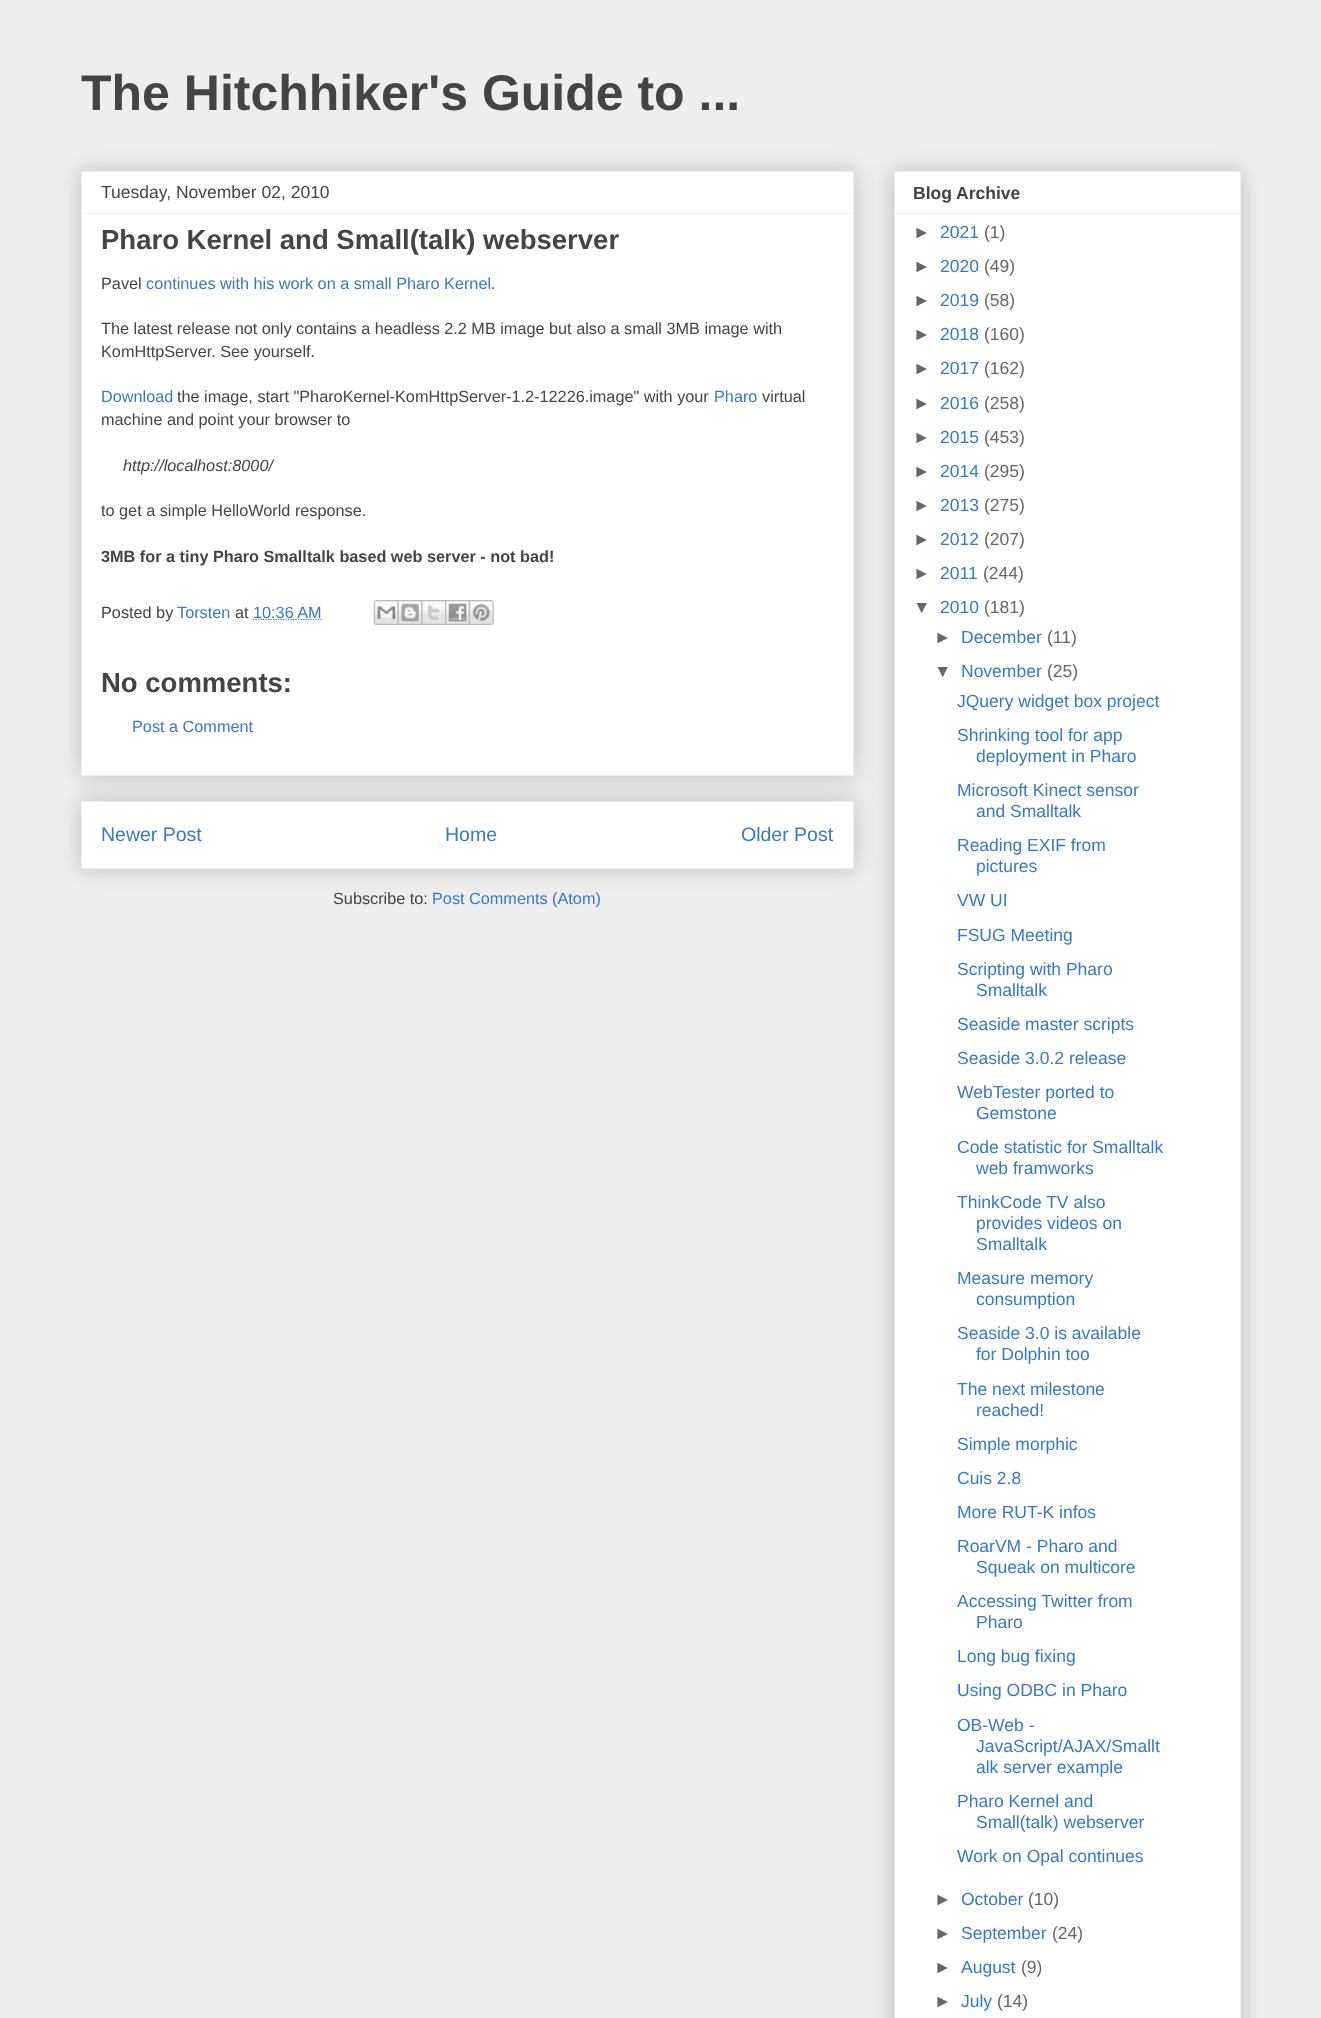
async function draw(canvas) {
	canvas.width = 1321;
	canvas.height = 2018;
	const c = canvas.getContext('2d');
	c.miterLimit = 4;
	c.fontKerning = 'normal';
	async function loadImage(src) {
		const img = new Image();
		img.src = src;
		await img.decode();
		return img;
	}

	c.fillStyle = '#eee';
	c.fillRect(0, 0, 1321, 2018);
	c.font = 'bold 50px Liberation Sans';
	c.fillStyle = '#444';
	c.fillText('The Hitchhiker\'s Guide to ...', 81, 110);
	c.fillStyle = '#00000033';
	c.filter = 'blur(12.5px)';
	c.beginPath();
	c.rect(81, 801, 773, 68);
	c.fill();
	c.filter = 'none';
	c.fillStyle = '#fff';
	c.beginPath();
	c.rect(81.5, 801.5, 772, 67);
	c.fill();
	c.strokeStyle = '#eee';
	c.stroke();
	c.fillStyle = '#00000033';
	c.filter = 'blur(12.5px)';
	c.beginPath();
	c.rect(81, 171, 773, 605);
	c.fill();
	c.filter = 'none';
	c.fillStyle = '#fff';
	c.beginPath();
	c.rect(81.5, 171.5, 772, 604);
	c.fill();
	c.stroke();
	c.font = '17.5px Liberation Sans';
	c.fillStyle = '#444';
	c.fillText('Tuesday, November 02, 2010', 101, 198);
	c.fillStyle = '#eee';
	c.fillRect(83, 213, 770, 1);
	c.font = 'bold 27.5px Liberation Sans';
	c.fillStyle = '#444';
	c.fillText('Pharo Kernel and Small(talk) webserver', 101, 249);
	c.font = '16.25px Liberation Sans';
	c.fillText('Pavel', 101, 289);
	c.fillStyle = '#3778cd';
	c.fillText('continues with his work on a small Pharo Kernel', 146, 289);
	c.fillStyle = '#444';
	for (const [text, x, y] of [
		['.', 491, 289],
		['The latest release not only contains a headless 2.2 MB image but also a small 3MB image with', 101, 334],
		['KomHttpServer. See yourself.', 101, 357],
	]) {
		c.fillText(text, x, y);
	}
	c.fillStyle = '#3778cd';
	c.fillText('Download', 101, 402);
	c.fillStyle = '#444';
	c.fillText('the image, start "PharoKernel-KomHttpServer-1.2-12226.image" with your', 177, 402);
	c.fillStyle = '#3778cd';
	c.fillText('Pharo', 714, 402);
	c.fillStyle = '#444';
	c.fillText('virtual', 762, 402);
	c.fillText('machine and point your browser to', 101, 425);
	c.font = 'italic 16.25px Liberation Sans';
	c.fillText('http://localhost:8000/', 123, 471);
	c.font = '16.25px Liberation Sans';
	c.fillText('to get a simple HelloWorld response.', 101, 516);
	c.font = 'bold 16.25px Liberation Sans';
	c.fillText('3MB for a tiny Pharo Smalltalk based web server - not bad!', 101, 562);
	c.font = '16.25px Liberation Sans';
	c.fillText('Posted by', 101, 618);
	c.fillStyle = '#3778cd';
	c.fillText('Torsten', 177, 618);
	c.fillStyle = '#444';
	c.fillText('at', 235, 618);
	c.beginPath();
	c.moveTo(253, 619.5);
	c.lineTo(321.5, 619.5);
	c.strokeStyle = '#3778cd';
	c.lineWidth = 1.2;
	c.setLineDash([1.25, 1.25]);
	c.stroke();
	c.fillStyle = '#3778cd';
	c.fillText('10:36 AM', 253, 618);
	c.drawImage(await loadImage('img1.png'), 373, 600, 25, 25);
	c.drawImage(await loadImage('img2.png'), 397, 600, 25, 25);
	c.drawImage(await loadImage('img3.png'), 421, 600, 24, 25);
	c.drawImage(await loadImage('img4.png'), 445, 600, 24, 25);
	c.drawImage(await loadImage('img5.png'), 468, 600, 26, 25);
	c.font = 'bold 27.5px Liberation Sans';
	c.fillStyle = '#444';
	c.fillText('No comments:', 101, 692);
	c.font = '16.25px Liberation Sans';
	c.fillStyle = '#3778cd';
	c.fillText('Post a Comment', 132, 732);
	c.font = '19.5px Liberation Sans';
	for (const [text, x, y] of [
		['Newer Post', 101, 841],
		['Home', 445, 841],
		['Older Post', 741, 841],
	]) {
		c.fillText(text, x, y);
	}
	c.font = '16.25px Liberation Sans';
	c.fillStyle = '#444';
	c.fillText('Subscribe to:', 333, 904);
	c.fillStyle = '#3778cd';
	c.fillText('Post Comments (Atom)', 432, 904);
	c.fillStyle = '#00000033';
	c.filter = 'blur(12.5px)';
	c.beginPath();
	c.rect(894, 171, 347, 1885);
	c.fill();
	c.filter = 'none';
	c.fillStyle = '#fff';
	c.beginPath();
	c.rect(894.5, 171.5, 346, 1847);
	c.fill();
	c.strokeStyle = '#eee';
	c.lineWidth = 1;
	c.setLineDash([]);
	c.stroke();
	c.font = 'bold 17.5px Liberation Sans';
	c.fillStyle = '#444';
	c.fillText('Blog Archive', 913, 199);
	c.fillStyle = '#eee';
	c.fillRect(895, 213, 345, 1);
	c.font = '17.5px Liberation Sans';
	c.fillStyle = '#666';
	c.fillText('►', 913, 238);
	c.fillStyle = '#3778cd';
	c.fillText('2021', 940, 238);
	c.fillStyle = '#666';
	c.fillText('(1)', 984, 238);
	c.fillText('►', 913, 272);
	c.fillStyle = '#3778cd';
	c.fillText('2020', 940, 272);
	c.fillStyle = '#666';
	c.fillText('(49)', 984, 272);
	c.fillText('►', 913, 306);
	c.fillStyle = '#3778cd';
	c.fillText('2019', 940, 306);
	c.fillStyle = '#666';
	c.fillText('(58)', 984, 306);
	c.fillText('►', 913, 340);
	c.fillStyle = '#3778cd';
	c.fillText('2018', 940, 340);
	c.fillStyle = '#666';
	c.fillText('(160)', 984, 340);
	c.fillText('►', 913, 374);
	c.fillStyle = '#3778cd';
	c.fillText('2017', 940, 374);
	c.fillStyle = '#666';
	c.fillText('(162)', 984, 374);
	c.fillText('►', 913, 409);
	c.fillStyle = '#3778cd';
	c.fillText('2016', 940, 409);
	c.fillStyle = '#666';
	c.fillText('(258)', 984, 409);
	c.fillText('►', 913, 443);
	c.fillStyle = '#3778cd';
	c.fillText('2015', 940, 443);
	c.fillStyle = '#666';
	c.fillText('(453)', 984, 443);
	c.fillText('►', 913, 477);
	c.fillStyle = '#3778cd';
	c.fillText('2014', 940, 477);
	c.fillStyle = '#666';
	c.fillText('(295)', 984, 477);
	c.fillText('►', 913, 511);
	c.fillStyle = '#3778cd';
	c.fillText('2013', 940, 511);
	c.fillStyle = '#666';
	c.fillText('(275)', 984, 511);
	c.fillText('►', 913, 545);
	c.fillStyle = '#3778cd';
	c.fillText('2012', 940, 545);
	c.fillStyle = '#666';
	c.fillText('(207)', 984, 545);
	c.fillText('►', 913, 579);
	c.fillStyle = '#3778cd';
	c.fillText('2011', 940, 579);
	c.fillStyle = '#666';
	c.fillText('(244)', 983, 579);
	c.fillText('▼', 913, 613);
	c.fillStyle = '#3778cd';
	c.fillText('2010', 940, 613);
	c.fillStyle = '#666';
	c.fillText('(181)', 984, 613);
	c.fillText('►', 934, 643);
	c.fillStyle = '#3778cd';
	c.fillText('December', 961, 643);
	c.fillStyle = '#666';
	c.fillText('(11)', 1047, 643);
	c.fillText('▼', 934, 677);
	c.fillStyle = '#3778cd';
	c.fillText('November', 961, 677);
	c.fillStyle = '#666';
	c.fillText('(25)', 1047, 677);
	c.fillStyle = '#3778cd';
	for (const [text, x, y] of [
		['JQuery widget box project', 957, 707],
		['Shrinking tool for app', 957, 741],
		['deployment in Pharo', 976, 762],
		['Microsoft Kinect sensor', 957, 796],
		['and Smalltalk', 976, 817],
		['Reading EXIF from', 957, 851],
		['pictures', 976, 872],
		['VW UI', 957, 906],
		['FSUG Meeting', 957, 941],
		['Scripting with Pharo', 957, 975],
		['Smalltalk', 976, 996],
		['Seaside master scripts', 957, 1030],
		['Seaside 3.0.2 release', 957, 1064],
		['WebTester ported to', 957, 1098],
		['Gemstone', 976, 1119],
		['Code statistic for Smalltalk', 957, 1153],
		['web framworks', 976, 1174],
		['ThinkCode TV also', 957, 1208],
		['provides videos on', 976, 1229],
		['Smalltalk', 976, 1250],
		['Measure memory', 957, 1284],
		['consumption', 976, 1305],
		['Seaside 3.0 is available', 957, 1339],
		['for Dolphin too', 976, 1360],
		['The next milestone', 957, 1395],
		['reached!', 976, 1416],
		['Simple morphic', 957, 1450],
		['Cuis 2.8', 957, 1484],
		['More RUT-K infos', 957, 1518],
		['RoarVM - Pharo and', 957, 1552],
		['Squeak on multicore', 976, 1573],
		['Accessing Twitter from', 957, 1607],
		['Pharo', 976, 1628],
		['Long bug fixing', 957, 1662],
		['Using ODBC in Pharo', 957, 1696],
		['OB-Web -', 957, 1731],
		['JavaScript/AJAX/Smallt', 976, 1752],
		['alk server example', 976, 1773],
		['Pharo Kernel and', 957, 1807],
		['Small(talk) webserver', 976, 1828],
		['Work on Opal continues', 957, 1862],
	]) {
		c.fillText(text, x, y);
	}
	c.fillStyle = '#666';
	c.fillText('►', 934, 1905);
	c.fillStyle = '#3778cd';
	c.fillText('October', 961, 1905);
	c.fillStyle = '#666';
	c.fillText('(10)', 1028, 1905);
	c.fillText('►', 934, 1939);
	c.fillStyle = '#3778cd';
	c.fillText('September', 961, 1939);
	c.fillStyle = '#666';
	c.fillText('(24)', 1052, 1939);
	c.fillText('►', 934, 1973);
	c.fillStyle = '#3778cd';
	c.fillText('August', 961, 1973);
	c.fillStyle = '#666';
	c.fillText('(9)', 1021, 1973);
	c.fillText('►', 934, 2007);
	c.fillStyle = '#3778cd';
	c.fillText('July', 961, 2007);
	c.fillStyle = '#666';
	c.fillText('(14)', 997, 2007);
}

draw(document.querySelector('canvas'));
